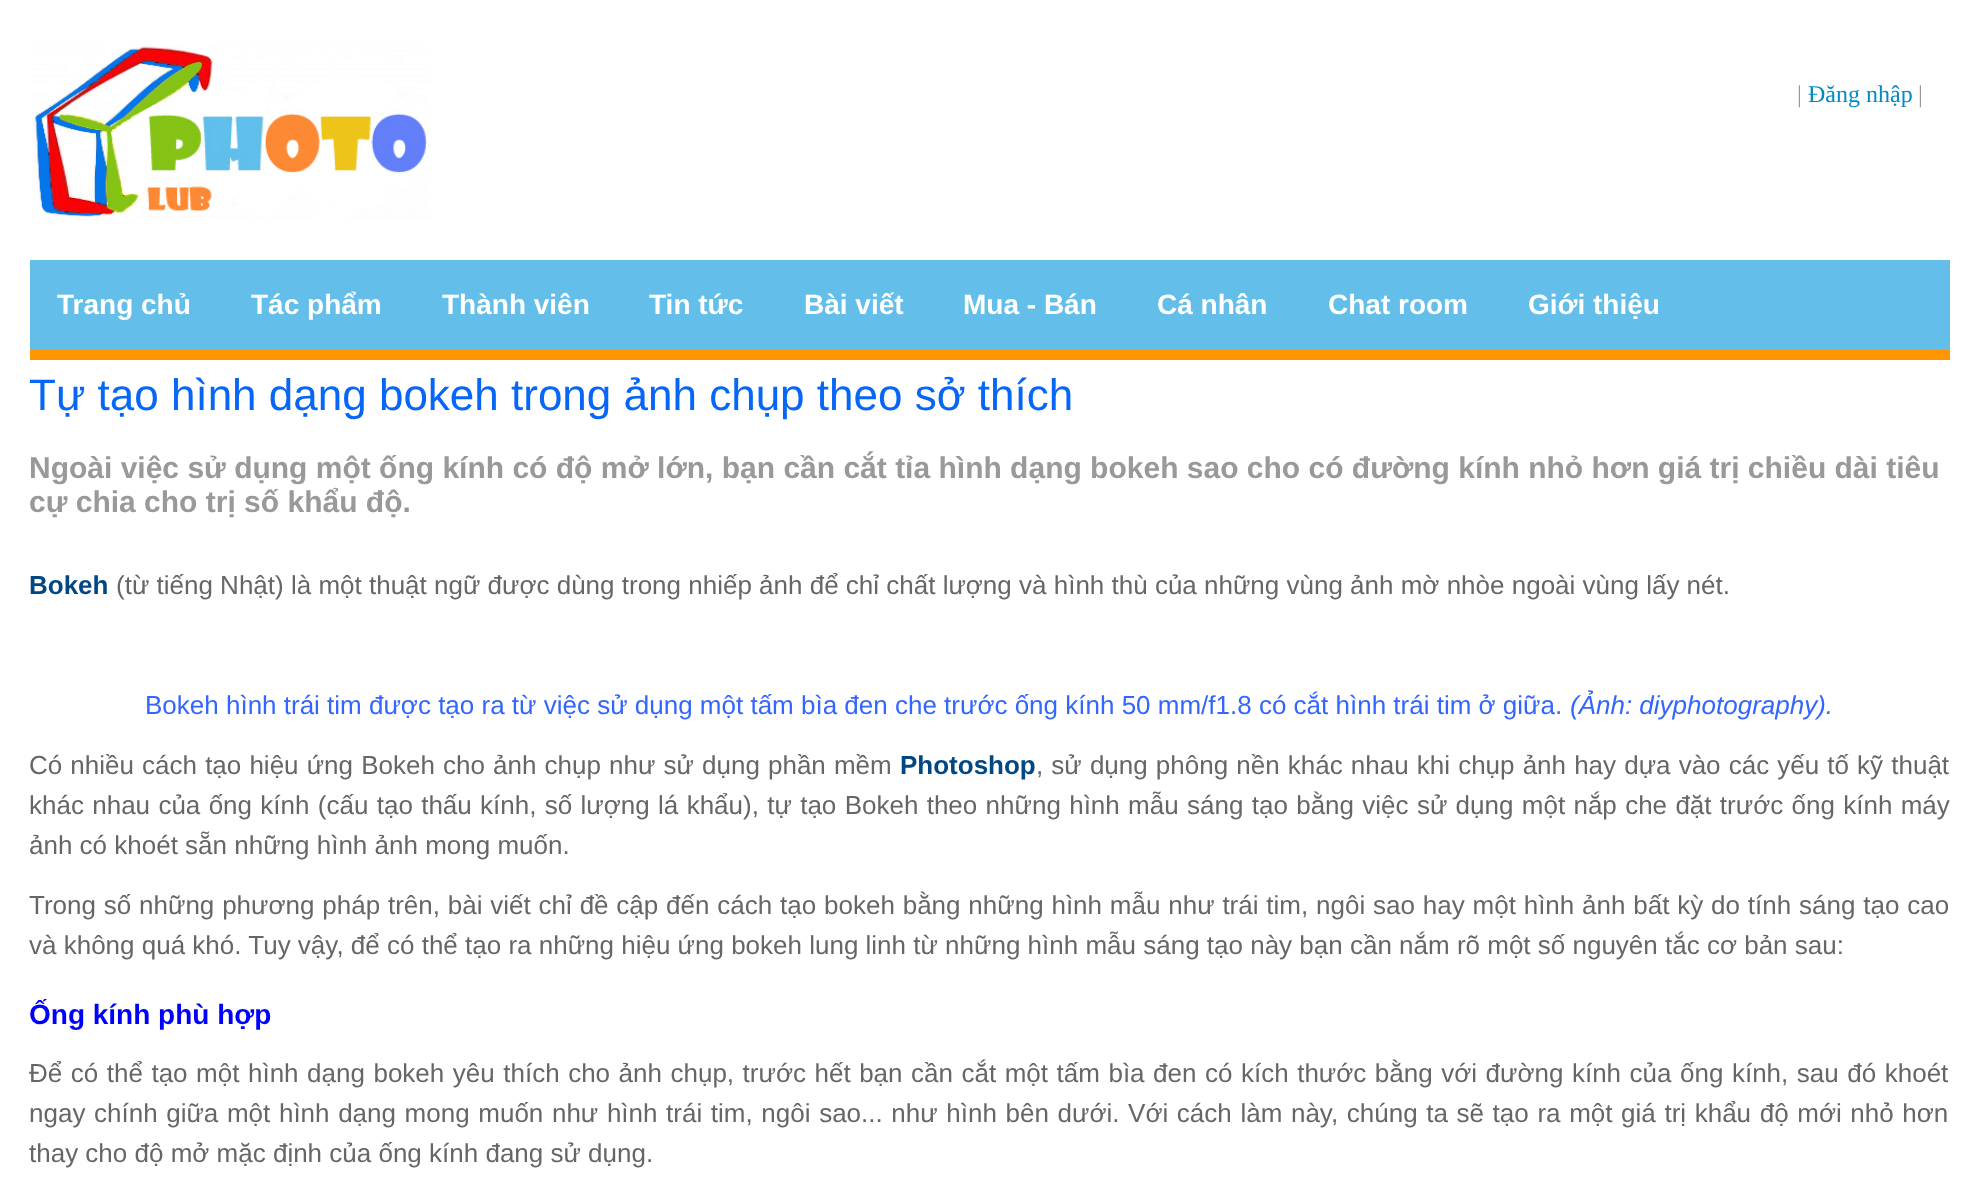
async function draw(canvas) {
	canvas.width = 1977;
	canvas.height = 1184;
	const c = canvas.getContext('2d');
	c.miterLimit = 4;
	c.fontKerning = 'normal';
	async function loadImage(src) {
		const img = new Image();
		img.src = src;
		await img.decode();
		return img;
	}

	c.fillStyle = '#fff';
	c.fillRect(0, 0, 1977, 1184);
	c.fillStyle = '#ff9600';
	c.fillRect(30, 350, 1920, 10);
	c.drawImage(await loadImage('img1.png'), 32, 46, 397, 174);
	c.font = '24px Liberation Serif';
	c.fillStyle = '#999';
	c.fillText('|', 1797, 102);
	c.fillStyle = '#008cc4';
	c.fillText('Đăng nhập', 1808, 102);
	c.fillStyle = '#999';
	c.fillText('|', 1918, 102);
	c.fillStyle = '#64beea';
	c.fillRect(30, 260, 1920, 90);
	c.font = 'bold 28px Liberation Sans';
	c.fillStyle = '#fff';
	for (const [text, x, y] of [
		['Trang chủ', 57, 314],
		['Tác phẩm', 251, 314],
		['Thành viên', 442, 314],
		['Tin tức', 649, 314],
		['Bài viết', 804, 314],
		['Mua - Bán', 963, 314],
		['Cá nhân', 1157, 314],
		['Chat room', 1328, 314],
		['Giới thiệu', 1528, 314],
	]) {
		c.fillText(text, x, y);
	}
	c.font = '44px Liberation Sans';
	c.fillStyle = '#0666f7';
	c.fillText('Tự tạo hình dạng bokeh trong ảnh chụp theo sở thích', 29, 410);
	c.font = 'bold 30px Liberation Sans';
	c.fillStyle = '#999';
	c.fillText('Ngoài việc sử dụng một ống kính có độ mở lớn, bạn cần cắt tỉa hình dạng bokeh sao cho có đường kính nhỏ hơn giá trị chiều dài tiêu', 29, 478);
	c.fillText('cự chia cho trị số khẩu độ.', 29, 512);
	c.font = 'bold 26px Liberation Sans';
	c.fillStyle = '#004784';
	c.fillText('Bokeh', 29, 594);
	c.font = '26px Liberation Sans';
	c.fillStyle = '#666';
	c.fillText('(từ tiếng Nhật) là một thuật ngữ được dùng trong nhiếp ảnh để chỉ chất lượng và hình thù của những vùng ảnh mờ nhòe ngoài vùng lấy nét.', 116, 594);
	c.fillStyle = '#36f';
	c.fillText('Bokeh hình trái tim được tạo ra từ việc sử dụng một tấm bìa đen che trước ống kính 50 mm/f1.8 có cắt hình trái tim ở giữa.', 145, 714);
	c.font = 'italic 26px Liberation Sans';
	c.fillText('(Ảnh: diyphotography).', 1570, 714);
	c.wordSpacing = '0.9px';
	c.font = '26px Liberation Sans';
	c.fillStyle = '#666';
	c.fillText('Có nhiều cách tạo hiệu ứng Bokeh cho ảnh chụp như sử dụng phần mềm', 29, 774);
	c.wordSpacing = '0px';
	c.font = 'bold 26px Liberation Sans';
	c.fillStyle = '#004784';
	c.fillText('Photoshop', 900, 774);
	c.wordSpacing = '0.9px';
	c.font = '26px Liberation Sans';
	c.fillStyle = '#666';
	c.fillText(', sử dụng phông nền khác nhau khi chụp ảnh hay dựa vào các yếu tố kỹ thuật', 1036, 774);
	c.wordSpacing = '1.1px';
	c.fillText('khác nhau của ống kính (cấu tạo thấu kính, số lượng lá khẩu), tự tạo Bokeh theo những hình mẫu sáng tạo bằng việc sử dụng một nắp che đặt trước ống kính máy', 29, 814);
	c.wordSpacing = '0px';
	c.fillText('ảnh có khoét sẵn những hình ảnh mong muốn.', 29, 854);
	c.wordSpacing = '0.6px';
	c.fillText('Trong số những phương pháp trên, bài viết chỉ đề cập đến cách tạo bokeh bằng những hình mẫu như trái tim, ngôi sao hay một hình ảnh bất kỳ do tính sáng tạo cao', 29, 914);
	c.wordSpacing = '0px';
	c.fillText('và không quá khó. Tuy vậy, để có thể tạo ra những hiệu ứng bokeh lung linh từ những hình mẫu sáng tạo này bạn cần nắm rõ một số nguyên tắc cơ bản sau:', 29, 954);
	c.font = 'bold 28px Liberation Sans';
	c.fillStyle = '#00f';
	c.fillText('Ống kính phù hợp', 29, 1024);
	c.wordSpacing = '1.3px';
	c.font = '26px Liberation Sans';
	c.fillStyle = '#666';
	c.fillText('Để có thể tạo một hình dạng bokeh yêu thích cho ảnh chụp, trước hết bạn cần cắt một tấm bìa đen có kích thước bằng với đường kính của ống kính, sau đó khoét', 29, 1082);
	c.wordSpacing = '1.4px';
	c.fillText('ngay chính giữa một hình dạng mong muốn như hình trái tim, ngôi sao... như hình bên dưới. Với cách làm này, chúng ta sẽ tạo ra một giá trị khẩu độ mới nhỏ hơn', 29, 1122);
	c.wordSpacing = '0px';
	c.fillText('thay cho độ mở mặc định của ống kính đang sử dụng.', 29, 1162);
}

draw(document.querySelector('canvas'));
